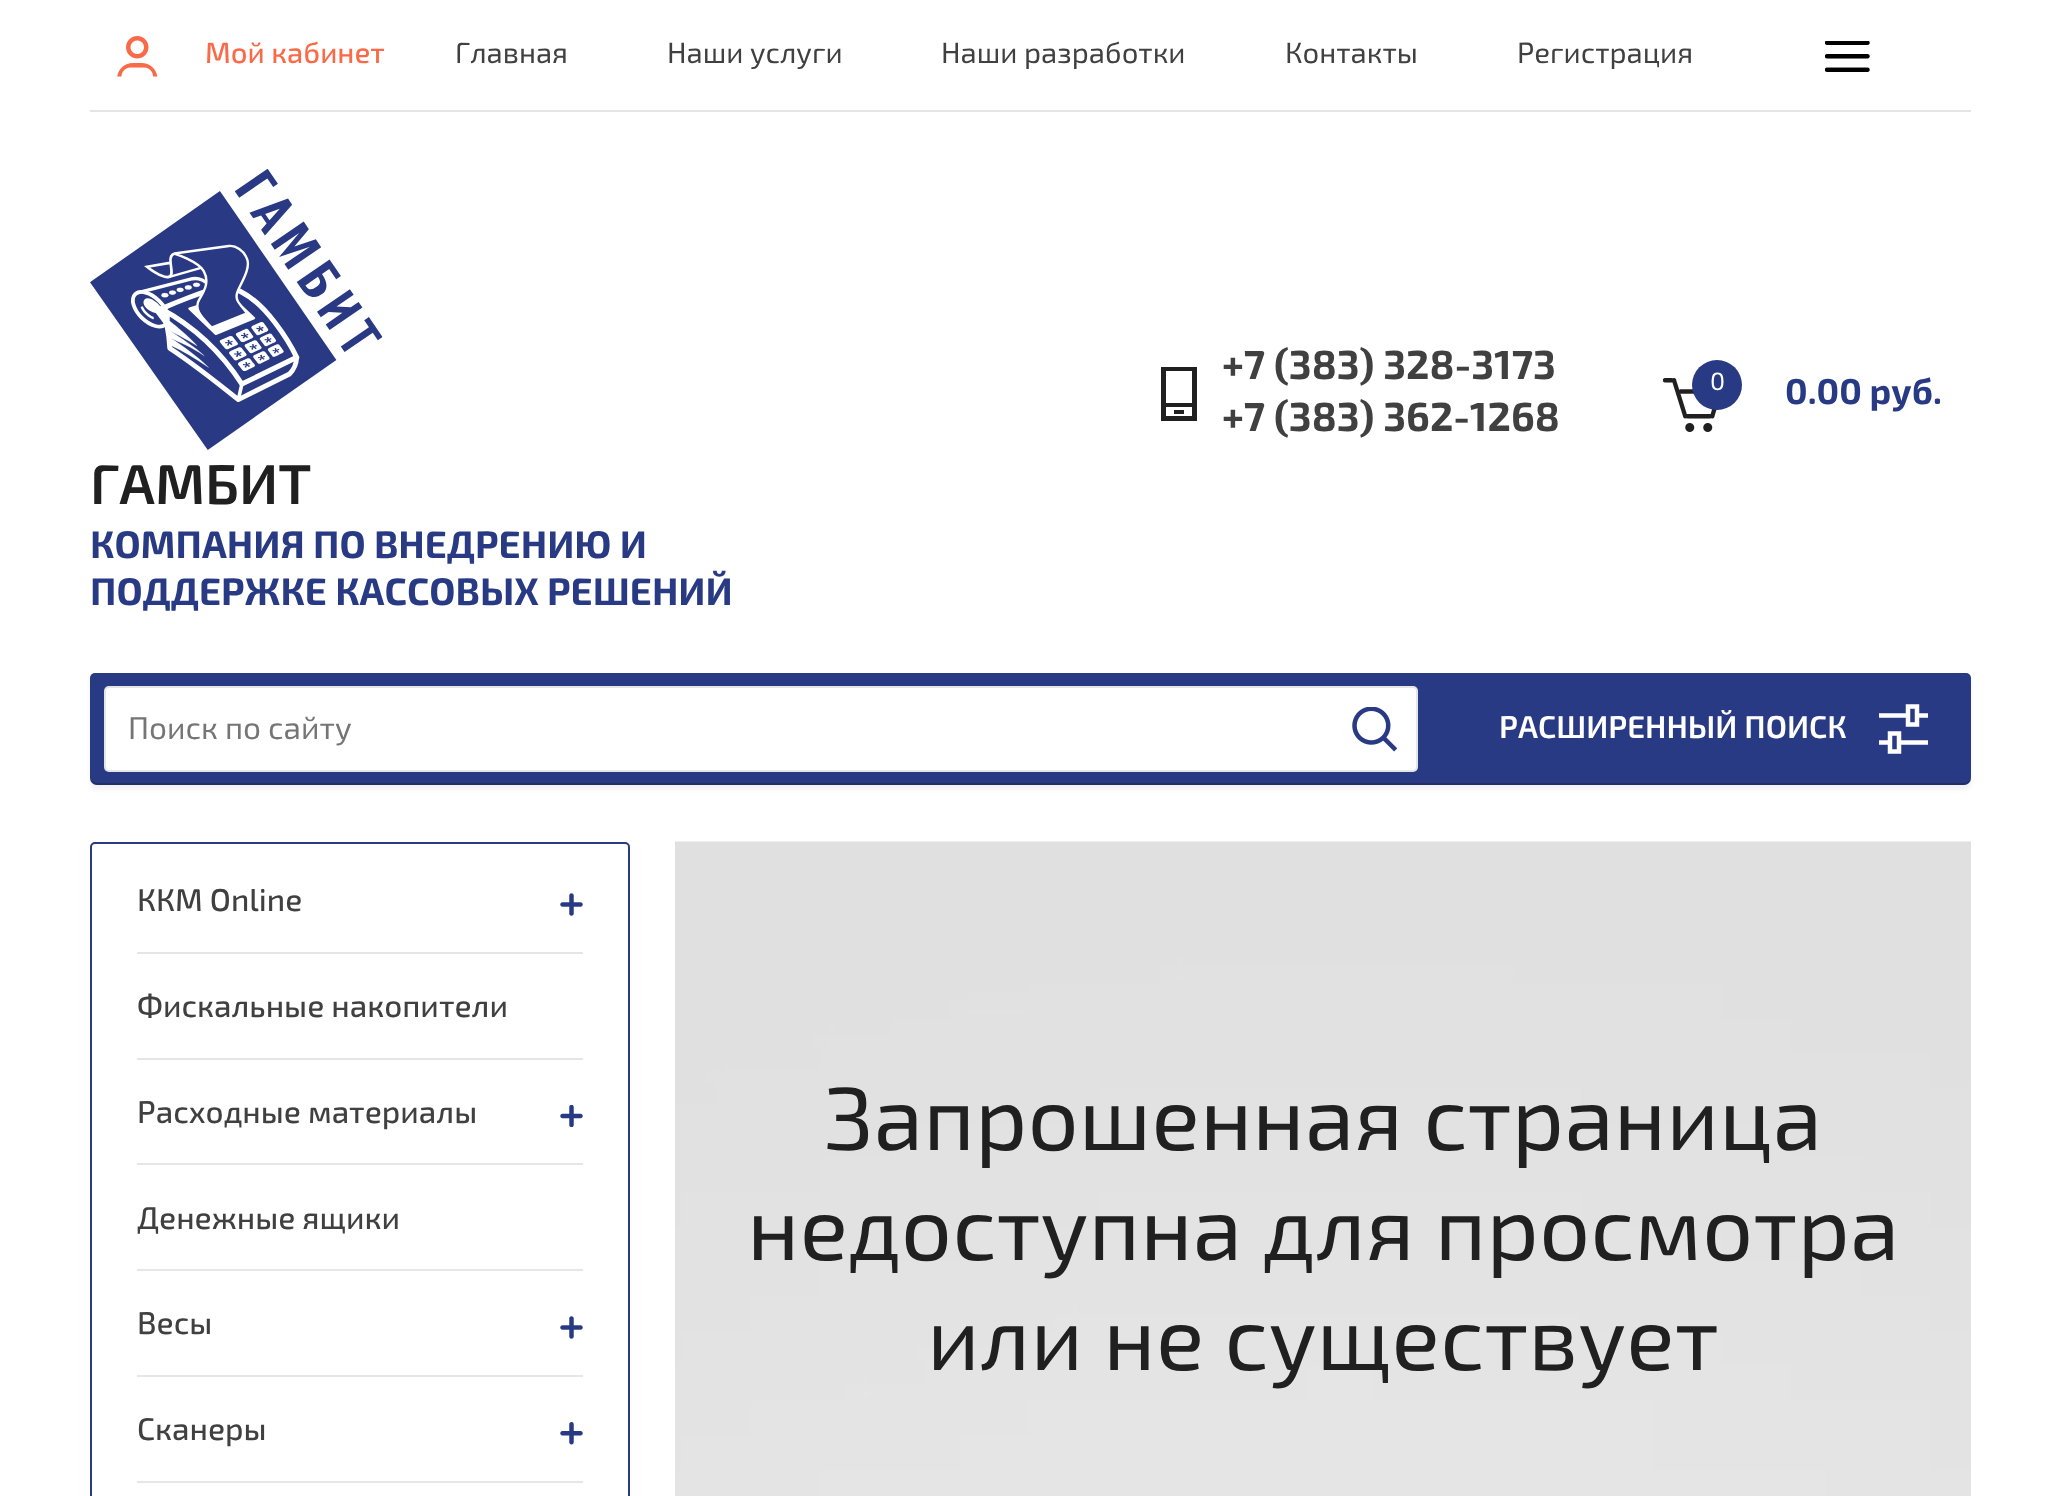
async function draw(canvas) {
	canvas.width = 2059;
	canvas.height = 1496;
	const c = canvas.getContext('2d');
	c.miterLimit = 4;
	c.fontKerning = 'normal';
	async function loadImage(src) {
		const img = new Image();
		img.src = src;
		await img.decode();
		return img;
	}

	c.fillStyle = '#fff';
	c.fillRect(0, 0, 2059, 1496);
	c.fillStyle = '#e5e5e5';
	c.fillRect(90, 110, 1881, 2);
	c.drawImage(await loadImage('img1.png'), 117, 36, 41, 41);
	c.font = '500 29.25px "Exo 2"';
	c.fillStyle = '#f96a48';
	c.fillText('Мой кабинет', 205, 63);
	c.font = '29.25px "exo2"';
	c.fillStyle = '#404040';
	for (const [text, x, y] of [
		['Главная', 455, 63],
		['Наши услуги', 667, 63],
		['Наши разработки', 941, 63],
		['Контакты', 1285, 63],
		['Регистрация', 1517, 63],
	]) {
		c.fillText(text, x, y);
	}
	c.drawImage(await loadImage('img2.png'), 1825, 41, 45, 31);
	c.fillStyle = '#202020';
	c.beginPath();
	c.moveTo(1161, 421);
	c.lineTo(1161, 367);
	c.lineTo(1197, 367);
	c.lineTo(1197, 421);
	c.closePath();
	c.moveTo(1192, 371);
	c.lineTo(1166, 371);
	c.lineTo(1166, 403);
	c.lineTo(1192, 403);
	c.closePath();
	c.moveTo(1192, 407);
	c.lineTo(1166, 407);
	c.lineTo(1166, 416);
	c.lineTo(1192, 416);
	c.closePath();
	c.moveTo(1184, 414);
	c.lineTo(1174, 414);
	c.lineTo(1174, 410);
	c.lineTo(1184, 410);
	c.closePath();
	c.fill();
	c.font = 'bold 40.5px "exo2"';
	c.fillStyle = '#404040';
	c.fillText('+7 (383) 328-3173', 1222, 379);
	c.fillText('+7 (383) 362-1268', 1222, 431);
	c.drawImage(await loadImage('img3.png'), 1663, 378, 54, 54);
	c.fillStyle = '#293a84';
	c.beginPath();
	c.arc(1717, 385, 25, 0, 2 * Math.PI);
	c.fill();
	c.font = '25px "exo2"';
	c.fillStyle = '#fff';
	c.fillText('0', 1710, 390);
	c.font = 'bold 36px "exo2"';
	c.fillStyle = '#293a84';
	c.fillText('0.00 руб.', 1785, 404);
	c.drawImage(await loadImage('img4.png'), 90, 169, 293, 281);
	c.font = '600 56px "Exo 2"';
	c.fillStyle = '#202020';
	c.fillText('ГАМБИТ', 90, 504);
	c.font = 'bold 38.25px "exo2"';
	c.fillStyle = '#293a84';
	c.fillText('КОМПАНИЯ ПО ВНЕДРЕНИЮ И', 90, 558);
	c.fillText('ПОДДЕРЖКЕ КАССОВЫХ РЕШЕНИЙ', 90, 605);
	c.fillStyle = '#0000000d';
	c.filter = 'blur(2px)';
	c.beginPath();
	c.roundRect(90, 677, 1881, 113, 7);
	c.fill();
	c.filter = 'none';
	c.fillStyle = '#293a84';
	c.beginPath();
	c.roundRect(90, 673, 1881, 112, [5, 5, 7, 7]);
	c.fill();
	c.fillStyle = '#00000033';
	c.beginPath();
	c.moveTo(90, 776);
	c.bezierCurveTo(90, 780, 92, 785, 97, 785);
	c.lineTo(1964, 785);
	c.bezierCurveTo(1969, 785, 1971, 780, 1971, 776);
	c.bezierCurveTo(1971, 780, 1968, 783, 1964, 783);
	c.lineTo(97, 783);
	c.bezierCurveTo(93, 783, 90, 780, 90, 776);
	c.closePath();
	c.fill();
	c.fillStyle = '#fff';
	c.beginPath();
	c.roundRect(104, 686, 1314, 86, 5);
	c.fill();
	c.beginPath();
	c.roundRect(105, 687, 1312, 84, 4);
	c.strokeStyle = '#0000001a';
	c.lineWidth = 2;
	c.stroke();
	c.font = '31.5px "exo2"';
	c.fillStyle = '#757575';
	c.fillText('Поиск по сайту', 128, 739);
	c.drawImage(await loadImage('img5.png'), 1352, 707, 45, 45);
	c.font = '600 31.5px "Exo 2"';
	c.fillStyle = '#fff';
	c.fillText('РАСШИРЕННЫЙ ПОИСК', 1499, 738);
	c.drawImage(await loadImage('img6.png'), 1879, 704, 49, 50);
	c.beginPath();
	c.roundRect(91, 843, 538, 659, 4);
	c.strokeStyle = '#293a84';
	c.stroke();
	c.fillStyle = '#e6e6e6';
	c.fillRect(137, 952, 446, 2);
	c.font = '500 31.5px "Exo 2"';
	c.fillStyle = '#404040';
	c.fillText('ККМ Online', 137, 911);
	c.drawImage(await loadImage('img7.png'), 560, 893, 23, 23);
	c.fillStyle = '#e6e6e6';
	c.fillRect(137, 1058, 446, 2);
	c.fillStyle = '#404040';
	c.fillText('Фискальные накопители', 137, 1017);
	c.fillStyle = '#e6e6e6';
	c.fillRect(137, 1163, 446, 2);
	c.fillStyle = '#404040';
	c.fillText('Расходные материалы', 137, 1123);
	c.drawImage(await loadImage('img8.png'), 560, 1105, 23, 22);
	c.fillStyle = '#e6e6e6';
	c.fillRect(137, 1269, 446, 2);
	c.fillStyle = '#404040';
	c.fillText('Денежные ящики', 137, 1229);
	c.fillStyle = '#e6e6e6';
	c.fillRect(137, 1375, 446, 2);
	c.fillStyle = '#404040';
	c.fillText('Весы', 137, 1334);
	c.drawImage(await loadImage('img7.png'), 560, 1316, 23, 23);
	c.fillStyle = '#e6e6e6';
	c.fillRect(137, 1481, 446, 2);
	c.fillStyle = '#404040';
	c.fillText('Сканеры', 137, 1440);
	c.drawImage(await loadImage('img9.png'), 560, 1422, 23, 23);
	c.drawImage(await loadImage('img10.png'), 675, 841, 1296, 655);
	c.font = '90px "exo2"';
	c.fillStyle = '#202020';
	for (const [text, x, y] of [
		['Запрошенная страница', 824, 1150],
		['недоступна для просмотра', 747, 1260],
		['или не существует', 927, 1370],
	]) {
		c.fillText(text, x, y);
	}
}

draw(document.querySelector('canvas'));
